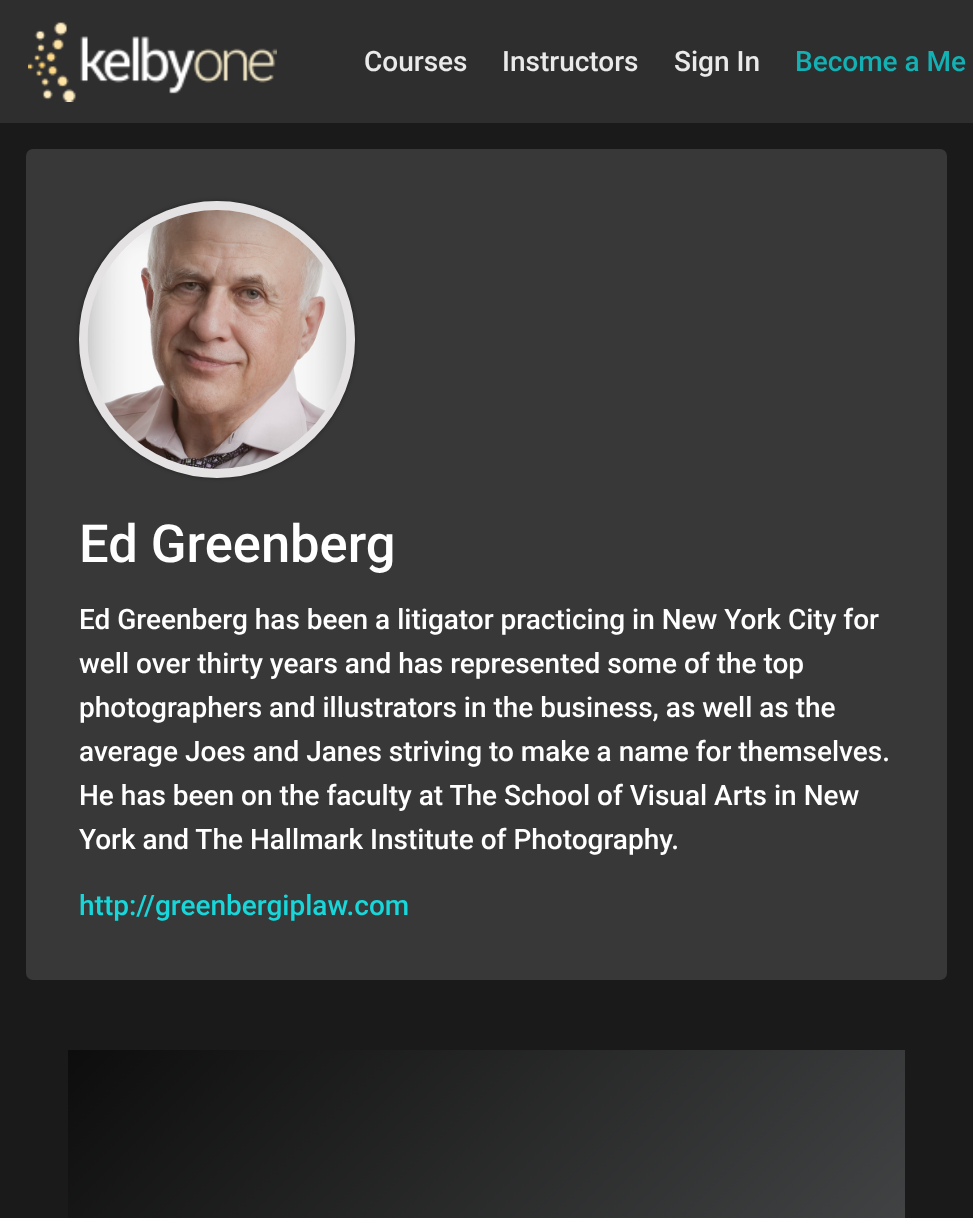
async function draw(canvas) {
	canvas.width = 973;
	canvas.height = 1218;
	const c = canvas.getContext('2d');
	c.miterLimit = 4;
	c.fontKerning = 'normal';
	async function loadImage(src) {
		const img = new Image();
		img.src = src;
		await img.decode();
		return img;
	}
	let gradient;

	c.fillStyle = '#1a1a1a';
	c.fillRect(0, 0, 973, 1218);
	c.fillStyle = '#2e2e2e';
	c.fillRect(0, 0, 973, 123);
	c.drawImage(await loadImage('img1.png'), 28, 22, 249, 80);
	c.font = '500 28px Roboto';
	c.fillStyle = '#eaeaea';
	for (const [text, x, y] of [
		['Courses', 364, 71],
		['Instructors', 502, 71],
		['Sign In', 674, 71],
	]) {
		c.fillText(text, x, y);
	}
	c.fillStyle = '#13b1b4';
	c.fillText('Become a Me', 795, 71);
	c.fillStyle = '#383838';
	c.beginPath();
	c.roundRect(26, 149, 921, 831, 7);
	c.fill();
	c.fillStyle = '#00000059';
	c.filter = 'blur(2px)';
	c.beginPath();
	c.roundRect(79, 201, 276, 277, 138);
	c.fill();
	c.filter = 'none';
	c.fillStyle = '#fff';
	c.beginPath();
	c.roundRect(83.5, 205.5, 267, 268, 133.5);
	c.fill();
	c.strokeStyle = '#e4e2e2';
	c.lineWidth = 9;
	c.stroke();
	c.drawImage(await loadImage('img2.png'), 87, 210, 260, 259);
	c.font = '500 52.5px Roboto';
	c.fillText('Ed Greenberg', 79, 562);
	c.font = '500 28px Roboto';
	for (const [text, x, y] of [
		['Ed Greenberg has been a litigator practicing in New York City for', 79, 629],
		['well over thirty years and has represented some of the top', 79, 673],
		['photographers and illustrators in the business, as well as the', 79, 717],
		['average Joes and Janes striving to make a name for themselves.', 79, 761],
		['He has been on the faculty at The School of Visual Arts in New', 79, 805],
		['York and The Hallmark Institute of Photography.', 79, 849],
	]) {
		c.fillText(text, x, y);
	}
	c.fillStyle = '#18d7da';
	c.fillText('http://greenbergiplaw.com', 79, 915);
	gradient = c.createLinearGradient(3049, 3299, 434, 684);
	gradient.addColorStop(0, '#0d0d0d');
	gradient.addColorStop(0.5, '#95989a');
	gradient.addColorStop(1, '#0d0d0d');
	c.fillStyle = gradient;
	c.fillRect(68, 1050, 837, 168);
}

draw(document.querySelector('canvas'));
